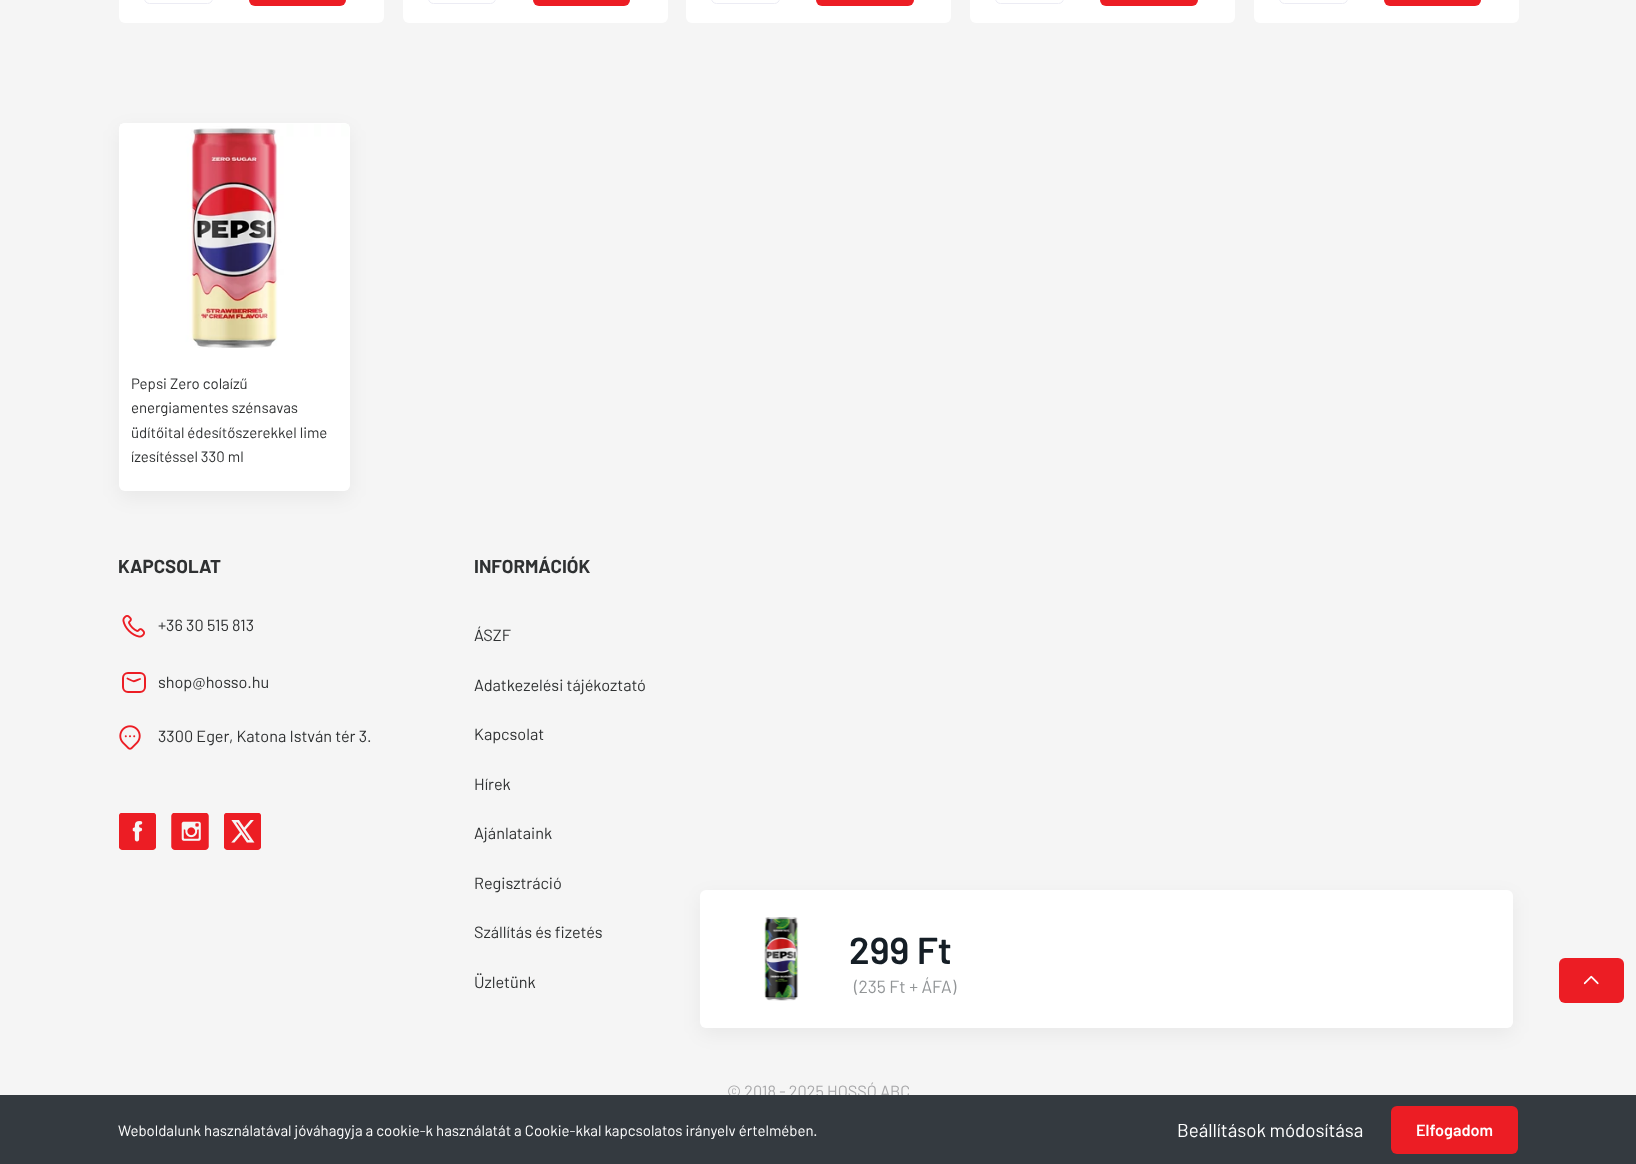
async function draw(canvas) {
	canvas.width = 1636;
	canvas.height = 1164;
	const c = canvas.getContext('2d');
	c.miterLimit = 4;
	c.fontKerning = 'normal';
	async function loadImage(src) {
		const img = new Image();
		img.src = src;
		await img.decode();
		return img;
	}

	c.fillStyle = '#f5f5f5';
	c.fillRect(0, 0, 1636, 1164);
	c.fillStyle = '#0000000d';
	c.filter = 'blur(9.5px)';
	c.beginPath();
	c.roundRect(119, 129, 231, 369, 6);
	c.fill();
	c.filter = 'none';
	c.fillStyle = '#fff';
	c.beginPath();
	c.roundRect(119, 123, 231, 368, 6);
	c.fill();
	c.beginPath();
	c.roundRect(119, 123, 231, 231, 6);
	c.fill();
	c.drawImage(await loadImage('img1.png'), 120, 124, 229, 224);
	c.font = '15px Barlow';
	c.fillStyle = '#2f3132';
	for (const [text, x, y] of [
		['Pepsi Zero colaízű', 131, 389],
		['energiamentes szénsavas', 131, 413],
		['üdítőital édesítőszerekkel lime', 131, 438],
		['ízesítéssel 330 ml', 131, 462],
	]) {
		c.fillText(text, x, y);
	}
	c.font = 'bold 18.75px Barlow';
	c.fillText('KAPCSOLAT', 118, 573);
	c.drawImage(await loadImage('img2.png'), 122, 615, 23, 23);
	c.font = '16.25px Barlow';
	c.fillText('+36 30 515 813', 158, 631);
	c.beginPath();
	c.roundRect(123, 673, 22, 19, 5);
	c.strokeStyle = '#ec1d24';
	c.lineWidth = 2;
	c.stroke();
	c.beginPath();
	c.moveTo(127.5, 678.5);
	c.bezierCurveTo(134.5, 682, 133, 682, 140, 679);
	c.lineWidth = 1.9;
	c.lineCap = 'round';
	c.lineJoin = 'round';
	c.stroke();
	c.fillText('shop@hosso.hu', 158, 688);
	c.drawImage(await loadImage('img3.png'), 119, 725, 22, 25);
	c.fillText('3300 Eger, Katona István tér 3.', 158, 742);
	c.drawImage(await loadImage('img4.png'), 119, 813, 37, 37);
	c.drawImage(await loadImage('img5.png'), 171, 813, 38, 37);
	c.drawImage(await loadImage('img6.png'), 224, 813, 37, 37);
	c.font = 'bold 18.75px Barlow';
	c.fillText('INFORMÁCIÓK', 474, 573);
	c.font = '16.25px Barlow';
	for (const [text, x, y] of [
		['ÁSZF', 474, 641],
		['Adatkezelési tájékoztató', 474, 691],
		['Kapcsolat', 474, 740],
		['Hírek', 474, 790],
		['Ajánlataink', 474, 839],
		['Regisztráció', 474, 889],
		['Szállítás és fizetés', 474, 938],
		['Üzletünk', 474, 988],
	]) {
		c.fillText(text, x, y);
	}
	c.fillStyle = '#a7a7a9';
	c.fillText('© 2018 - 2025 HOSSÓ ABC', 727, 1097);
	c.fillStyle = '#fff';
	c.beginPath();
	c.roundRect(119, -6, 265, 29, 6);
	c.fill();
	c.beginPath();
	c.roundRect(144.5, -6.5, 68, 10, 5.5);
	c.strokeStyle = '#ececf4';
	c.lineWidth = 1;
	c.lineJoin = 'miter';
	c.stroke();
	c.fillStyle = '#ec1d24';
	c.beginPath();
	c.roundRect(249, -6, 97, 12, 6);
	c.fill();
	c.fillStyle = '#fff';
	c.beginPath();
	c.roundRect(403, -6, 265, 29, 6);
	c.fill();
	c.beginPath();
	c.roundRect(428.5, -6.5, 67, 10, 5.5);
	c.stroke();
	c.fillStyle = '#ec1d24';
	c.beginPath();
	c.roundRect(533, -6, 97, 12, 6);
	c.fill();
	c.fillStyle = '#fff';
	c.beginPath();
	c.roundRect(686, -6, 265, 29, 6);
	c.fill();
	c.beginPath();
	c.roundRect(711.5, -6.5, 68, 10, 5.5);
	c.stroke();
	c.fillStyle = '#ec1d24';
	c.beginPath();
	c.roundRect(816, -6, 98, 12, 6);
	c.fill();
	c.fillStyle = '#fff';
	c.beginPath();
	c.roundRect(970, -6, 265, 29, 6);
	c.fill();
	c.beginPath();
	c.roundRect(995.5, -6.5, 68, 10, 5.5);
	c.stroke();
	c.fillStyle = '#ec1d24';
	c.beginPath();
	c.roundRect(1100, -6, 98, 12, 6);
	c.fill();
	c.fillStyle = '#fff';
	c.beginPath();
	c.roundRect(1254, -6, 265, 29, 6);
	c.fill();
	c.beginPath();
	c.roundRect(1279.5, -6.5, 68, 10, 5.5);
	c.stroke();
	c.fillStyle = '#ec1d24';
	c.beginPath();
	c.roundRect(1384, -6, 97, 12, 6);
	c.fill();
	c.fillStyle = '#0000000d';
	c.filter = 'blur(9.5px)';
	c.beginPath();
	c.roundRect(700, 896, 813, 138, 6);
	c.fill();
	c.filter = 'none';
	c.fillStyle = '#fff';
	c.beginPath();
	c.roundRect(700, 890, 813, 138, 6);
	c.fill();
	c.drawImage(await loadImage('img7.png'), 764, 917, 35, 84);
	c.font = '600 37.5px Barlow';
	c.fillStyle = '#151e26';
	c.fillText('299 Ft', 849, 964);
	c.font = '17.5px Barlow';
	c.fillStyle = '#929597';
	c.fillText('(235 Ft + ÁFA)', 854, 993);
	c.fillStyle = '#ec1d24';
	c.beginPath();
	c.roundRect(1559, 958, 65, 45, 6);
	c.fill();
	c.drawImage(await loadImage('img8.png'), 1583, 975, 16, 10);
	c.fillStyle = '#343a40';
	c.fillRect(0, 1095, 1636, 69);
	c.font = '15px Barlow';
	c.fillStyle = '#fff';
	c.fillText('Weboldalunk használatával jóváhagyja a cookie-k használatát a Cookie-kkal kapcsolatos irányelv értelmében.', 118, 1136);
	c.font = '18.75px Barlow';
	c.fillText('Beállítások módosítása', 1177, 1137);
	c.fillStyle = '#ec1d24';
	c.beginPath();
	c.roundRect(1391, 1106, 127, 48, 6);
	c.fill();
	c.font = '600 16.25px Barlow';
	c.fillStyle = '#fff';
	c.fillText('Elfogadom', 1416, 1136);
}

draw(document.querySelector('canvas'));
